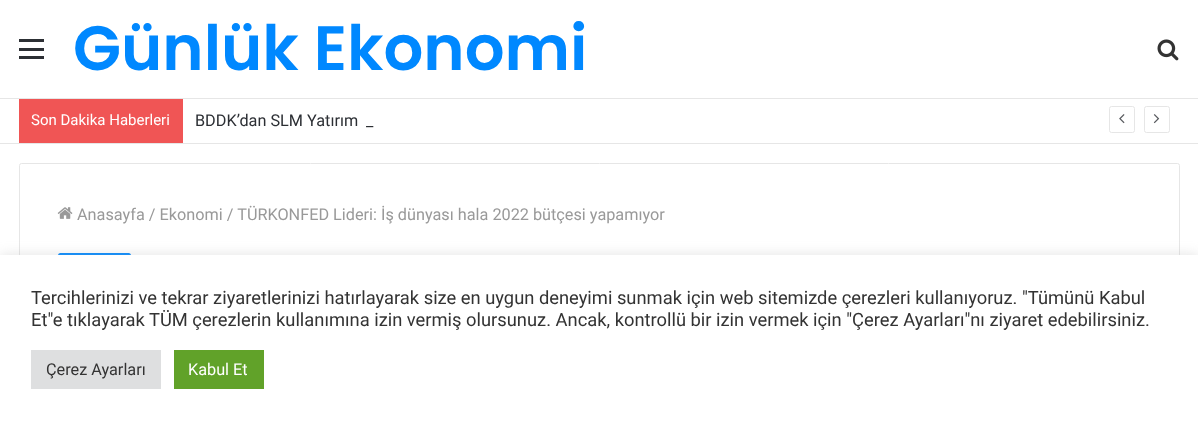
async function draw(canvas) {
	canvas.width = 1198;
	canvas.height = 426;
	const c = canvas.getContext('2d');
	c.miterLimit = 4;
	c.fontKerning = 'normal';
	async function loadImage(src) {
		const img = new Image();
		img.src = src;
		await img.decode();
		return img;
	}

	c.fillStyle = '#fff';
	c.fillRect(0, 0, 1198, 426);
	for (const [x, y, w, h, color] of [
		[19, 48, 25, 3, '#2c2f34'],
		[19, 39, 25, 3, '#2c2f34'],
		[19, 56, 25, 3, '#2c2f34'],
	]) {
		c.fillStyle = color;
		c.fillRect(x, y, w, h);
	}
	c.font = '600 62.5px Poppins';
	c.fillStyle = '#08f';
	c.fillText('Günlük Ekonomi', 73, 70);
	c.drawImage(await loadImage('img1.png'), 1157, 39, 22, 22);
	for (const [x, y, w, h, color] of [
		[0, 98, 1198, 1, '#e6e6e6'],
		[0, 143, 1198, 1, '#e6e6e6'],
		[19, 99, 164, 44, '#f05555'],
	]) {
		c.fillStyle = color;
		c.fillRect(x, y, w, h);
	}
	c.font = '15px Roboto';
	c.fillStyle = '#fff';
	c.fillText('Son Dakika Haberleri', 31, 125);
	c.font = '16.25px Roboto';
	c.fillStyle = '#2c2f34';
	c.fillText('BDDK’dan SLM Yatırım', 195, 126);
	c.fillText('_', 366, 126);
	c.beginPath();
	c.roundRect(1109.5, 106.5, 25, 26, 2);
	c.strokeStyle = '#e6e6e6';
	c.stroke();
	c.drawImage(await loadImage('img2.png'), 1119, 114, 6, 10);
	c.beginPath();
	c.roundRect(1144.5, 106.5, 25, 26, 2);
	c.stroke();
	c.drawImage(await loadImage('img3.png'), 1153, 114, 7, 10);
	c.beginPath();
	c.roundRect(19.5, 163.5, 1160, 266, 2);
	c.stroke();
	c.drawImage(await loadImage('img4.png'), 57, 207, 16, 12);
	c.fillStyle = '#999';
	c.fillText('Anasayfa / Ekonomi / TÜRKONFED Lideri: İş dünyası hala 2022 bütçesi yapamıyor', 77, 220);
	c.fillStyle = '#08f';
	c.beginPath();
	c.roundRect(58, 253, 73, 27, 2.5);
	c.fill();
	c.fillStyle = '#acabab4d';
	c.filter = 'blur(6px)';
	c.beginPath();
	c.rect(0, 254, 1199, 171);
	c.fill();
	c.filter = 'none';
	c.fillStyle = '#fff';
	c.fillRect(0, 255, 1198, 171);
	c.font = '18.33px Roboto';
	c.fillStyle = '#333';
	c.fillText('Tercihlerinizi ve tekrar ziyaretlerinizi hatırlayarak size en uygun deneyimi sunmak için web sitemizde çerezleri kullanıyoruz. "Tümünü Kabul', 31, 304);
	c.fillText('Et"e tıklayarak TÜM çerezlerin kullanımına izin vermiş olursunuz. Ancak, kontrollü bir izin vermek için "Çerez Ayarları"nı ziyaret edebilirsiniz.', 31, 326);
	c.fillStyle = '#dedfe0';
	c.fillRect(31, 350, 130, 39);
	c.font = '16.25px Roboto';
	c.fillStyle = '#333';
	c.fillText('Çerez Ayarları', 46, 375);
	c.fillStyle = '#61a229';
	c.fillRect(174, 350, 90, 39);
	c.fillStyle = '#fff';
	c.fillText('Kabul Et', 188, 375);
}

draw(document.querySelector('canvas'));
